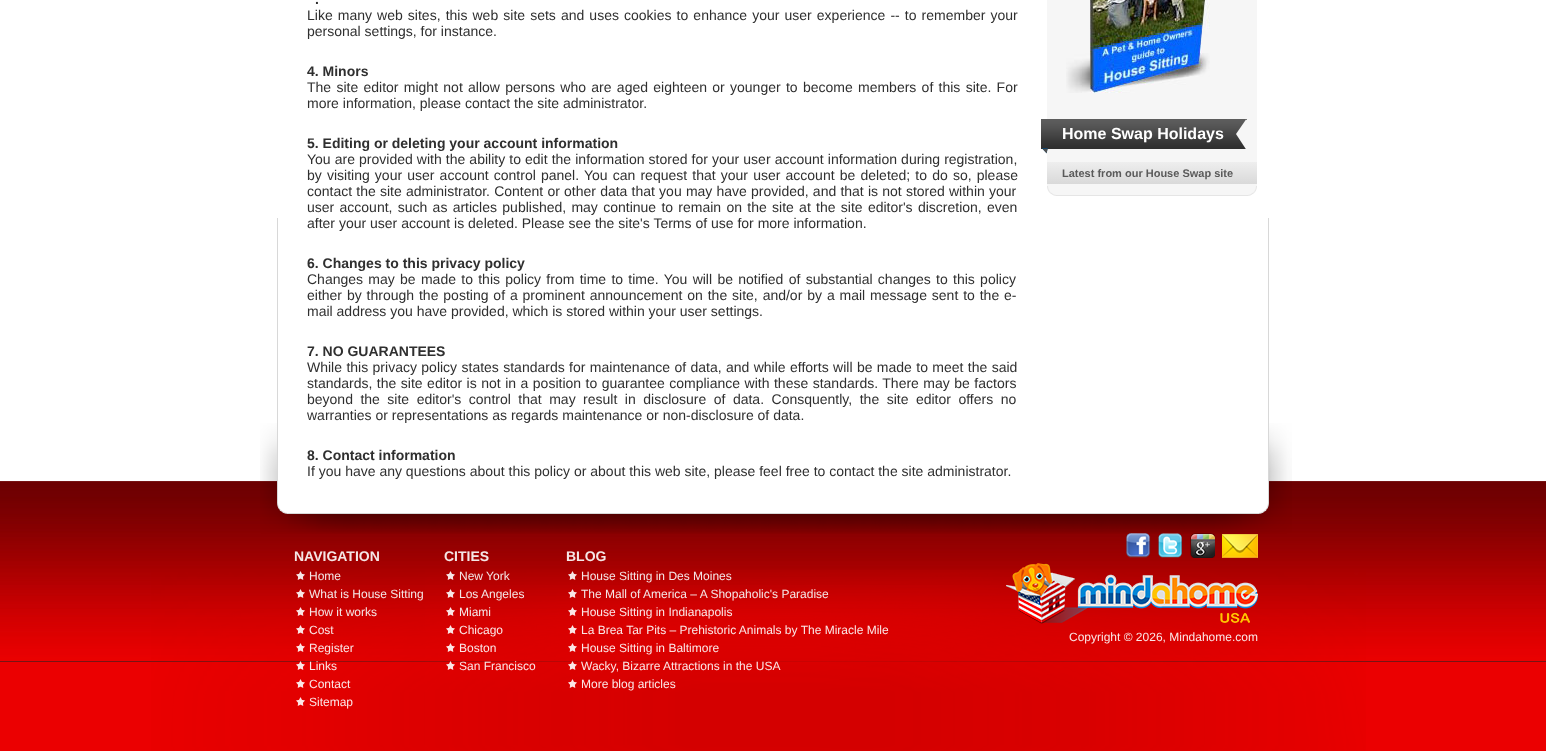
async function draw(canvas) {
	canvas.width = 1546;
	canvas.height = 751;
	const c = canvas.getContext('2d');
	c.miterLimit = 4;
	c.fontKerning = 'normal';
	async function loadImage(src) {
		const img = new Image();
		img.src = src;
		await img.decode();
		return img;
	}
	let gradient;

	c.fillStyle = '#fff';
	c.fillRect(0, 0, 1546, 751);
	c.font = 'bold 14px Liberation Sans';
	c.fillStyle = '#2f2f2f';
	c.fillText('.', 315, 4);
	c.wordSpacing = '1.2px';
	c.font = '14px Liberation Sans';
	c.fillText('Like many web sites, this web site sets and uses cookies to enhance your user experience -- to remember your', 307, 20);
	c.wordSpacing = '0px';
	c.fillText('personal settings, for instance.', 307, 36);
	c.font = 'bold 14px Liberation Sans';
	c.fillText('4. Minors', 307, 76);
	c.wordSpacing = '1.4px';
	c.font = '14px Liberation Sans';
	c.fillText('The site editor might not allow persons who are aged eighteen or younger to become members of this site. For', 307, 92);
	c.wordSpacing = '0px';
	c.fillText('more information, please contact the site administrator.', 307, 108);
	c.font = 'bold 14px Liberation Sans';
	c.fillText('5. Editing or deleting your account information', 307, 148);
	c.wordSpacing = '0.2px';
	c.font = '14px Liberation Sans';
	c.fillText('You are provided with the ability to edit the information stored for your user account information during registration,', 307, 164);
	c.wordSpacing = '1.25px';
	c.fillText('by visiting your user account control panel. You can request that your user account be deleted; to do so, please', 307, 180);
	c.wordSpacing = '0.3px';
	c.fillText('contact the site administrator. Content or other data that you may have provided, and that is not stored within your', 307, 196);
	c.wordSpacing = '1.4px';
	c.fillText('user account, such as articles published, may continue to remain on the site at the site editor\'s discretion, even', 307, 212);
	c.drawImage(await loadImage('img5.png'), 0, 481, 1546, 181);
	c.drawImage(await loadImage('img28.png'), 1126, 533, 25, 25);
	c.drawImage(await loadImage('img29.png'), 1158, 533, 24, 25);
	c.drawImage(await loadImage('img30.png'), 1190, 533, 25, 25);
	c.drawImage(await loadImage('img4.png'), 260, 218, 1032, 316);
	c.wordSpacing = '0px';
	c.fillText('after your user account is deleted. Please see the site\'s Terms of use for more information.', 307, 228);
	c.font = 'bold 14px Liberation Sans';
	c.fillText('6. Changes to this privacy policy', 307, 268);
	c.wordSpacing = '1.4px';
	c.font = '14px Liberation Sans';
	c.fillText('Changes may be made to this policy from time to time. You will be notified of substantial changes to this policy', 307, 284);
	c.wordSpacing = '1px';
	c.fillText('either by through the posting of a prominent announcement on the site, and/or by a mail message sent to the e-', 307, 300);
	c.wordSpacing = '0px';
	c.fillText('mail address you have provided, which is stored within your user settings.', 307, 316);
	c.font = 'bold 14px Liberation Sans';
	c.fillText('7. NO GUARANTEES', 307, 356);
	c.wordSpacing = '0.5px';
	c.font = '14px Liberation Sans';
	c.fillText('While this privacy policy states standards for maintenance of data, and while efforts will be made to meet the said', 307, 372);
	c.wordSpacing = '0.6px';
	c.fillText('standards, the site editor is not in a position to guarantee compliance with these standards. There may be factors', 307, 388);
	c.wordSpacing = '3.6px';
	c.fillText('beyond the site editor\'s control that may result in disclosure of data. Consquently, the site editor offers no', 307, 404);
	c.wordSpacing = '0px';
	c.fillText('warranties or representations as regards maintenance or non-disclosure of data.', 307, 420);
	c.font = 'bold 14px Liberation Sans';
	c.fillText('8. Contact information', 307, 460);
	c.font = '14px Liberation Sans';
	c.fillText('If you have any questions about this policy or about this web site, please feel free to contact the site administrator.', 307, 476);
	c.fillStyle = '#f6f6f6';
	c.fillRect(1047, 0, 210, 186);
	c.drawImage(await loadImage('img1.png'), 1047, 186, 210, 10);
	c.drawImage(await loadImage('img2.png'), 1066, 0, 144, 93);
	c.drawImage(await loadImage('img3.png'), 1041, 119, 206, 35);
	c.font = 'bold 16px Liberation Sans';
	c.fillStyle = '#fff';
	c.fillText('Home Swap Holidays', 1062, 139);
	gradient = c.createLinearGradient(1152, 162, 1152, 184);
	gradient.addColorStop(0, '#eee');
	gradient.addColorStop(1, '#d9d9d9');
	c.fillStyle = gradient;
	c.fillRect(1047, 162, 210, 22);
	c.font = 'bold 11px Liberation Sans';
	c.fillStyle = '#5a5a5a';
	c.fillText('Latest from our House Swap site', 1062, 177);
	c.fillStyle = '#eb0001';
	c.fillRect(0, 662, 1546, 89);
	c.drawImage(await loadImage('img6.png'), 151, 570, 1215, 181);
	c.font = 'bold 14px Liberation Sans';
	c.fillStyle = '#f5e6e6';
	c.fillText('NAVIGATION', 294, 561);
	c.drawImage(await loadImage('img7.png'), 296, 571, 9, 9);
	c.font = '12px Liberation Sans';
	c.fillText('Home', 309, 580);
	c.drawImage(await loadImage('img8.png'), 296, 589, 9, 9);
	c.fillText('What is House Sitting', 309, 598);
	c.drawImage(await loadImage('img9.png'), 296, 607, 9, 9);
	c.fillText('How it works', 309, 616);
	c.drawImage(await loadImage('img10.png'), 296, 625, 9, 9);
	c.fillStyle = '#fbe6e6';
	c.fillText('Cost', 309, 634);
	c.drawImage(await loadImage('img11.png'), 296, 643, 9, 9);
	c.fillText('Register', 309, 652);
	c.drawImage(await loadImage('img12.png'), 296, 661, 9, 9);
	c.fillText('Links', 309, 670);
	c.drawImage(await loadImage('img13.png'), 296, 679, 9, 9);
	c.fillText('Contact', 309, 688);
	c.drawImage(await loadImage('img14.png'), 296, 697, 9, 9);
	c.fillText('Sitemap', 309, 706);
	c.font = 'bold 14px Liberation Sans';
	c.fillStyle = '#f5e6e6';
	c.fillText('CITIES', 444, 561);
	c.drawImage(await loadImage('img15.png'), 446, 571, 9, 9);
	c.font = '12px Liberation Sans';
	c.fillText('New York', 459, 580);
	c.drawImage(await loadImage('img16.png'), 446, 589, 9, 9);
	c.fillText('Los Angeles', 459, 598);
	c.drawImage(await loadImage('img17.png'), 446, 607, 9, 9);
	c.fillText('Miami', 459, 616);
	c.drawImage(await loadImage('img18.png'), 446, 625, 9, 9);
	c.fillStyle = '#fbe6e6';
	c.fillText('Chicago', 459, 634);
	c.drawImage(await loadImage('img19.png'), 446, 643, 9, 9);
	c.fillText('Boston', 459, 652);
	c.drawImage(await loadImage('img20.png'), 446, 661, 9, 9);
	c.fillText('San Francisco', 459, 670);
	c.font = 'bold 14px Liberation Sans';
	c.fillStyle = '#f5e6e6';
	c.fillText('BLOG', 566, 561);
	c.drawImage(await loadImage('img21.png'), 568, 571, 9, 9);
	c.font = '12px Liberation Sans';
	c.fillText('House Sitting in Des Moines', 581, 580);
	c.drawImage(await loadImage('img22.png'), 568, 589, 9, 9);
	c.fillText('The Mall of America – A Shopaholic\'s Paradise', 581, 598);
	c.drawImage(await loadImage('img23.png'), 568, 607, 9, 9);
	c.fillStyle = '#fbe6e6';
	c.fillText('House Sitting in Indianapolis', 581, 616);
	c.drawImage(await loadImage('img24.png'), 568, 625, 9, 9);
	c.fillText('La Brea Tar Pits – Prehistoric Animals by The Miracle Mile', 581, 634);
	c.drawImage(await loadImage('img25.png'), 568, 643, 9, 9);
	c.fillText('House Sitting in Baltimore', 581, 652);
	c.drawImage(await loadImage('img26.png'), 568, 661, 9, 9);
	c.fillText('Wacky, Bizarre Attractions in the USA', 581, 670);
	c.drawImage(await loadImage('img27.png'), 568, 679, 9, 9);
	c.fillText('More blog articles', 581, 688);
	c.drawImage(await loadImage('img31.png'), 1222, 534, 36, 24);
	c.drawImage(await loadImage('img32.png'), 1006, 563, 252, 61);
	c.fillText('Copyright © 2026, Mindahome.com', 1069, 641);
}

draw(document.querySelector('canvas'));
